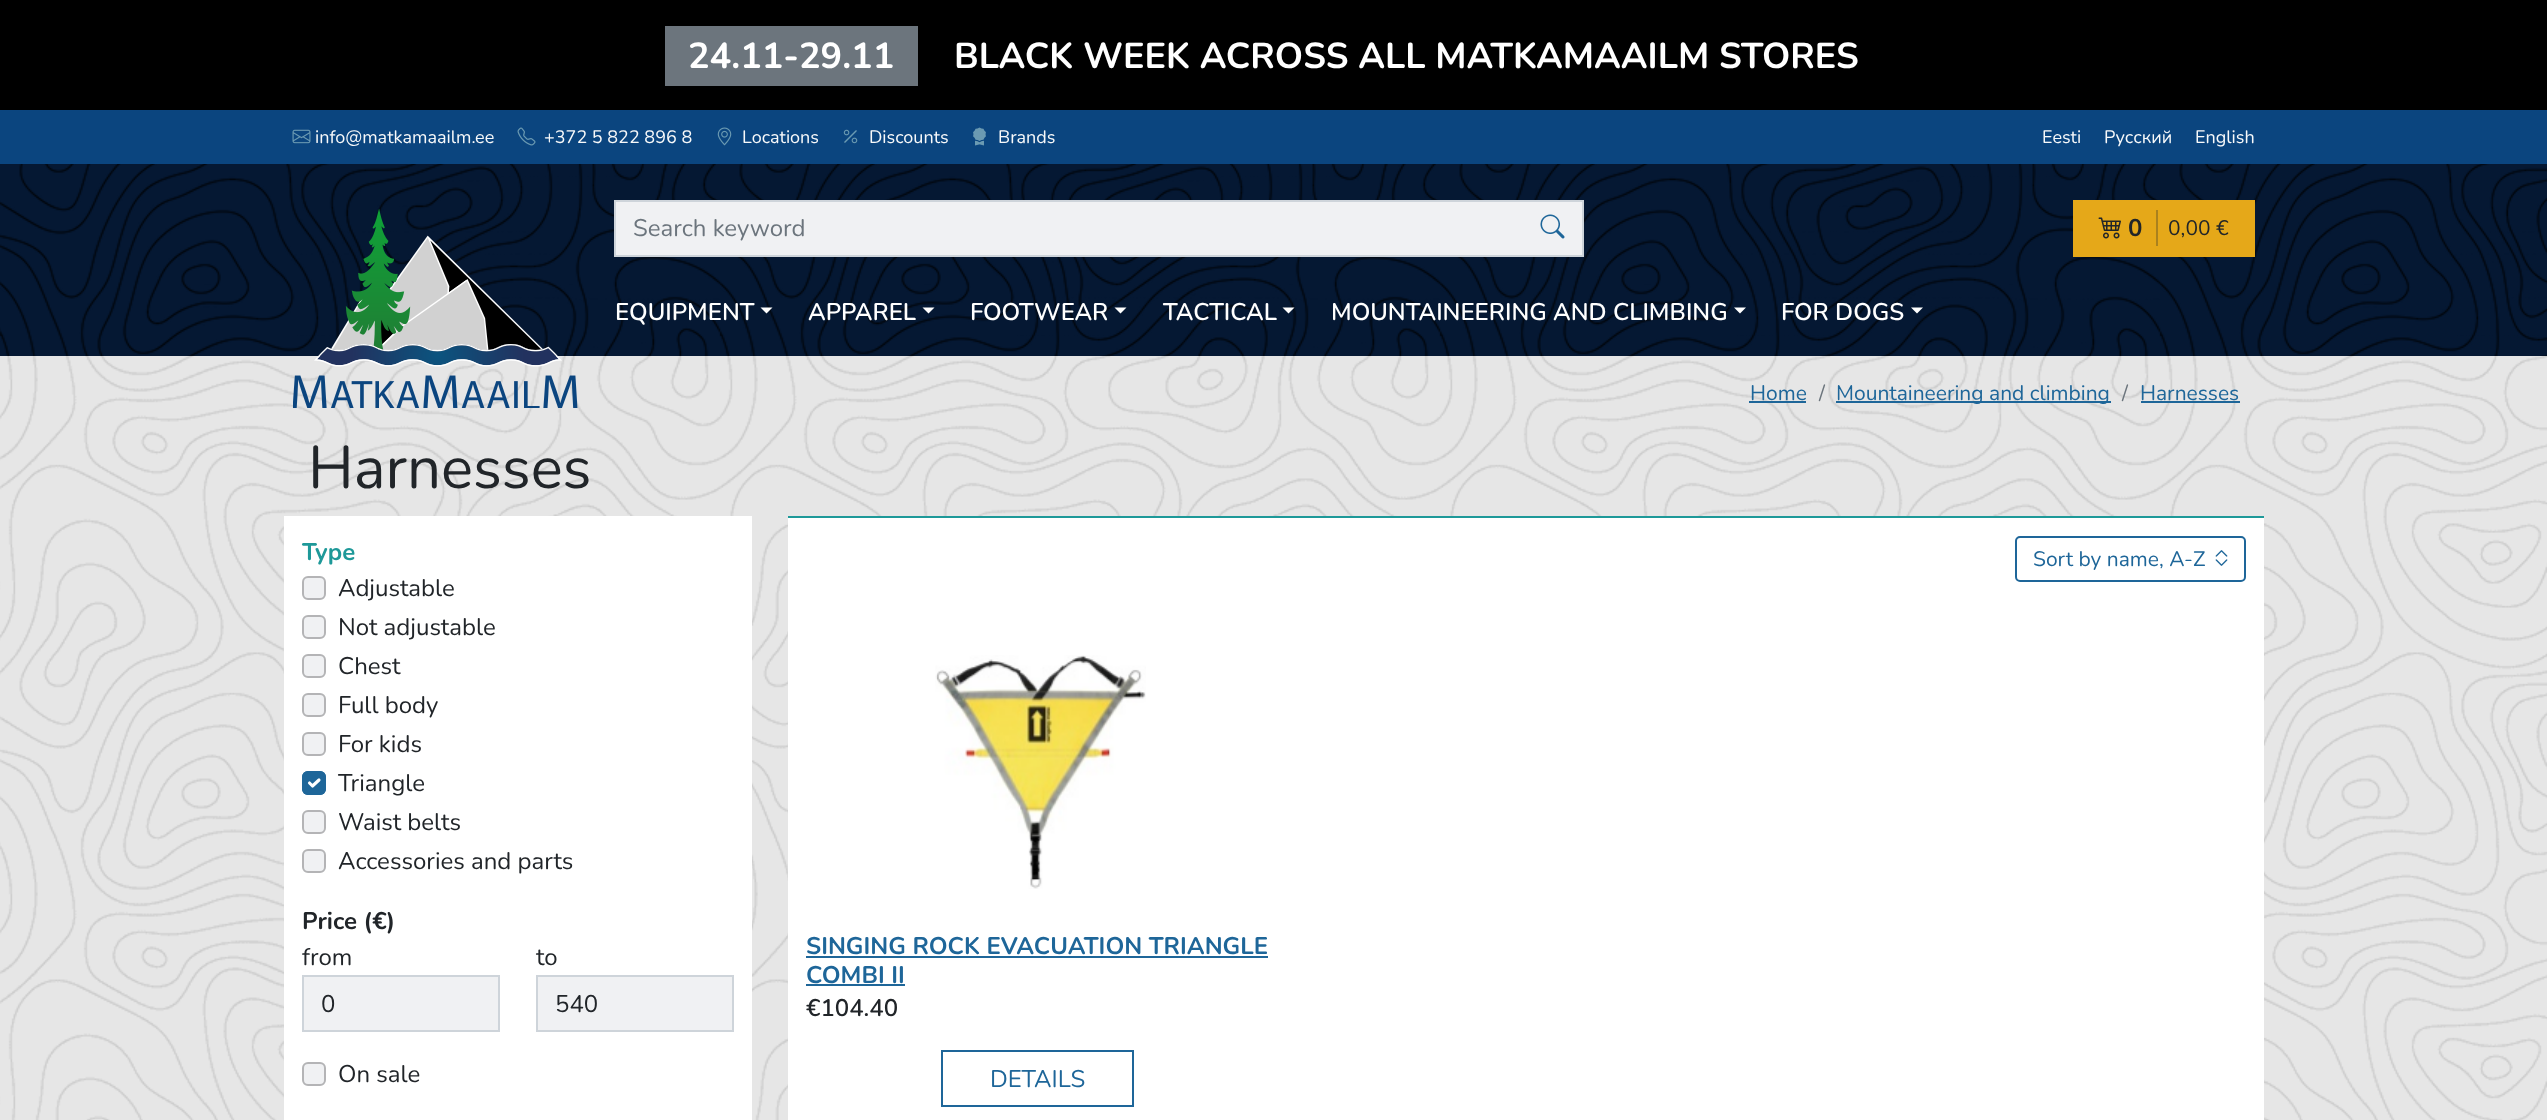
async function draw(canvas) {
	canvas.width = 2547;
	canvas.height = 1120;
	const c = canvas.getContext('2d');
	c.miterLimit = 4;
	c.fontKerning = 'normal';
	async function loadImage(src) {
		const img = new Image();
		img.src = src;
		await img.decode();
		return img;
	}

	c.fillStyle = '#fff';
	c.fillRect(0, 0, 2547, 1120);
	c.drawImage(await loadImage('img1.png'), 0, 356, 2547, 764);
	c.fillStyle = '#051833';
	c.fillRect(0, 164, 2547, 192);
	c.drawImage(await loadImage('img2.png'), 0, 164, 2547, 192);
	c.fillStyle = '#000';
	c.fillRect(0, 0, 2547, 110);
	c.fillStyle = '#6c757d';
	c.fillRect(665, 26, 253, 60);
	c.font = 'bold 36px Nunito';
	c.fillStyle = '#fff';
	c.fillText('24.11-29.11', 688, 68);
	c.fillText('BLACK WEEK ACROSS ALL MATKAMAAILM STORES', 954, 68);
	c.fillStyle = '#0b457f';
	c.fillRect(0, 110, 2547, 54);
	c.drawImage(await loadImage('img3.png'), 292, 129, 19, 15);
	c.font = '18px Nunito';
	c.fillStyle = '#f8f9fa';
	c.fillText('info@matkamaailm.ee', 315, 143);
	c.drawImage(await loadImage('img4.png'), 517, 127, 19, 19);
	c.fillText('+372 5 822 896 8', 544, 143);
	c.drawImage(await loadImage('img5.png'), 717, 127, 15, 19);
	c.fillText('Locations', 742, 143);
	c.drawImage(await loadImage('img6.png'), 843, 129, 15, 15);
	c.fillText('Discounts', 869, 143);
	c.drawImage(await loadImage('img7.png'), 973, 127, 13, 19);
	for (const [text, x, y] of [
		['Brands', 998, 143],
		['Eesti', 2042, 143],
		['Русский', 2104, 143],
		['English', 2195, 143],
	]) {
		c.fillText(text, x, y);
	}
	c.drawImage(await loadImage('img8.png'), 293, 209, 285, 199);
	c.fillStyle = '#f0f1f3';
	c.beginPath();
	c.rect(615, 201, 968, 55);
	c.fill();
	c.strokeStyle = '#ced4da';
	c.lineWidth = 2;
	c.stroke();
	c.font = '24px Nunito';
	c.fillStyle = '#6c757d';
	c.fillText('Search keyword', 633, 236);
	c.drawImage(await loadImage('img9.png'), 1540, 214, 25, 25);
	c.fillStyle = '#e5a819';
	c.fillRect(2073, 200, 182, 57);
	c.fillStyle = '#aa811e';
	c.fillRect(2156, 210, 2, 36);
	c.drawImage(await loadImage('img10.png'), 2098, 217, 23, 22);
	c.font = 'bold 24px Nunito';
	c.fillStyle = '#212529';
	c.fillText('0', 2128, 236);
	c.font = '21px Nunito';
	c.fillText('0,00 €', 2168, 235);
	c.font = '600 24px Nunito';
	c.fillStyle = '#fff';
	c.fillText('EQUIPMENT', 615, 320);
	c.beginPath();
	c.moveTo(760.5, 307.5);
	c.lineTo(772.5, 307.5);
	c.lineTo(766.5, 313.5);
	c.closePath();
	c.fill();
	c.fillText('APPAREL', 808, 320);
	c.beginPath();
	c.moveTo(922.5, 307.5);
	c.lineTo(934.5, 307.5);
	c.lineTo(928.5, 313.5);
	c.closePath();
	c.fill();
	c.fillText('FOOTWEAR', 970, 320);
	c.beginPath();
	c.moveTo(1114.5, 307.5);
	c.lineTo(1126.5, 307.5);
	c.lineTo(1120.5, 313.5);
	c.closePath();
	c.fill();
	c.fillText('TACTICAL', 1163, 320);
	c.beginPath();
	c.moveTo(1282.5, 307.5);
	c.lineTo(1294.5, 307.5);
	c.lineTo(1288.5, 313.5);
	c.closePath();
	c.fill();
	c.fillText('MOUNTAINEERING AND CLIMBING', 1331, 320);
	c.beginPath();
	c.moveTo(1734, 307.5);
	c.lineTo(1746, 307.5);
	c.lineTo(1740, 313.5);
	c.closePath();
	c.fill();
	c.fillText('FOR DOGS', 1781, 320);
	c.beginPath();
	c.moveTo(1911, 307.5);
	c.lineTo(1923, 307.5);
	c.lineTo(1917, 313.5);
	c.closePath();
	c.fill();
	c.font = '21px Nunito';
	c.fillStyle = '#1e6699';
	c.fillText('Home', 1750, 400);
	c.fillRect(1749, 401, 57, 2);
	c.fillStyle = '#6c757d';
	c.fillText('/', 1819, 400);
	c.fillStyle = '#1e6699';
	c.fillRect(1836, 401, 275, 2);
	c.fillText('Mountaineering and climbing', 1836, 400);
	c.fillStyle = '#6c757d';
	c.fillText('/', 2122, 400);
	c.fillStyle = '#1e6699';
	c.fillText('Harnesses', 2140, 400);
	c.fillRect(2141, 401, 99, 2);
	c.font = '60px Nunito';
	c.fillStyle = '#212529';
	c.fillText('Harnesses', 308, 488);
	c.fillStyle = '#fff';
	c.fillRect(284, 516, 468, 604);
	c.font = 'bold 24px Nunito';
	c.fillStyle = '#1e9999';
	c.fillText('Type', 302, 560);
	c.fillStyle = '#f0f1f3';
	c.beginPath();
	c.roundRect(302, 576, 24, 24, 6);
	c.fill();
	c.beginPath();
	c.roundRect(303, 577, 22, 22, 5);
	c.strokeStyle = '#00000040';
	c.stroke();
	c.font = '24px Nunito';
	c.fillStyle = '#212529';
	c.fillText('Adjustable', 338, 596);
	c.fillStyle = '#f0f1f3';
	c.beginPath();
	c.roundRect(302, 615, 24, 24, 6);
	c.fill();
	c.beginPath();
	c.roundRect(303, 616, 22, 22, 5);
	c.stroke();
	c.fillStyle = '#212529';
	c.fillText('Not adjustable', 338, 635);
	c.fillStyle = '#f0f1f3';
	c.beginPath();
	c.roundRect(302, 654, 24, 24, 6);
	c.fill();
	c.beginPath();
	c.roundRect(303, 655, 22, 22, 5);
	c.stroke();
	c.fillStyle = '#212529';
	c.fillText('Chest', 338, 674);
	c.fillStyle = '#f0f1f3';
	c.beginPath();
	c.roundRect(302, 693, 24, 24, 6);
	c.fill();
	c.beginPath();
	c.roundRect(303, 694, 22, 22, 5);
	c.stroke();
	c.fillStyle = '#212529';
	c.fillText('Full body', 338, 713);
	c.fillStyle = '#f0f1f3';
	c.beginPath();
	c.roundRect(302, 732, 24, 24, 6);
	c.fill();
	c.beginPath();
	c.roundRect(303, 733, 22, 22, 5);
	c.stroke();
	c.fillStyle = '#212529';
	c.fillText('For kids', 338, 752);
	c.fillStyle = '#1e6699';
	c.beginPath();
	c.roundRect(302, 771, 24, 24, 6);
	c.fill();
	c.beginPath();
	c.moveTo(309.5, 783);
	c.lineTo(312.5, 786);
	c.lineTo(319, 780);
	c.strokeStyle = '#fff';
	c.lineWidth = 3.1;
	c.lineCap = 'round';
	c.lineJoin = 'round';
	c.stroke();
	c.beginPath();
	c.roundRect(303, 772, 22, 22, 5);
	c.strokeStyle = '#1e6699';
	c.lineWidth = 2;
	c.lineJoin = 'miter';
	c.stroke();
	c.fillStyle = '#212529';
	c.fillText('Triangle', 338, 791);
	c.fillStyle = '#f0f1f3';
	c.beginPath();
	c.roundRect(302, 810, 24, 24, 6);
	c.fill();
	c.beginPath();
	c.roundRect(303, 811, 22, 22, 5);
	c.strokeStyle = '#00000040';
	c.stroke();
	c.fillStyle = '#212529';
	c.fillText('Waist belts', 338, 830);
	c.fillStyle = '#f0f1f3';
	c.beginPath();
	c.roundRect(302, 849, 24, 24, 6);
	c.fill();
	c.beginPath();
	c.roundRect(303, 850, 22, 22, 5);
	c.stroke();
	c.fillStyle = '#212529';
	c.fillText('Accessories and parts', 338, 869);
	c.font = 'bold 24px Nunito';
	c.fillText('Price (€)', 302, 929);
	c.font = '24px Nunito';
	c.fillText('from', 302, 965);
	c.fillStyle = '#f0f1f3';
	c.beginPath();
	c.rect(303, 976, 196, 55);
	c.fill();
	c.strokeStyle = '#ced4da';
	c.stroke();
	c.fillStyle = '#212529';
	c.fillText('0', 321, 1012);
	c.fillText('to', 536, 965);
	c.fillStyle = '#f0f1f3';
	c.beginPath();
	c.rect(537, 976, 196, 55);
	c.fill();
	c.stroke();
	c.fillStyle = '#212529';
	c.fillText('540', 555, 1012);
	c.fillStyle = '#f0f1f3';
	c.beginPath();
	c.roundRect(302, 1062, 24, 24, 6);
	c.fill();
	c.beginPath();
	c.roundRect(303, 1063, 22, 22, 5);
	c.strokeStyle = '#00000040';
	c.stroke();
	c.fillStyle = '#212529';
	c.fillText('On sale', 338, 1082);
	c.fillStyle = '#fff';
	c.fillRect(788, 518, 1476, 602);
	c.fillStyle = '#1e9999';
	c.fillRect(788, 516, 1476, 2);
	c.beginPath();
	c.roundRect(2016, 537, 229, 44, 4);
	c.strokeStyle = '#1e6699';
	c.stroke();
	c.font = '21px Nunito';
	c.fillStyle = '#1e6699';
	c.fillText('Sort by name, A-Z', 2033, 566);
	c.drawImage(await loadImage('img11.png'), 2215, 550, 13, 16);
	c.drawImage(await loadImage('img12.png'), 935, 655, 211, 234);
	c.font = 'bold 24px Nunito';
	c.fillText('SINGING ROCK EVACUATION TRIANGLE', 806, 954);
	c.fillRect(806, 956, 462, 2);
	c.fillText('COMBI II', 806, 983);
	c.fillRect(806, 984, 99, 2);
	c.font = '600 24px Nunito';
	c.fillStyle = '#212529';
	c.fillText('€104.40', 806, 1016);
	c.strokeRect(942, 1051, 191, 55);
	c.font = '24px Nunito';
	c.fillStyle = '#1e6699';
	c.fillText('DETAILS', 990, 1087);
}

draw(document.querySelector('canvas'));
